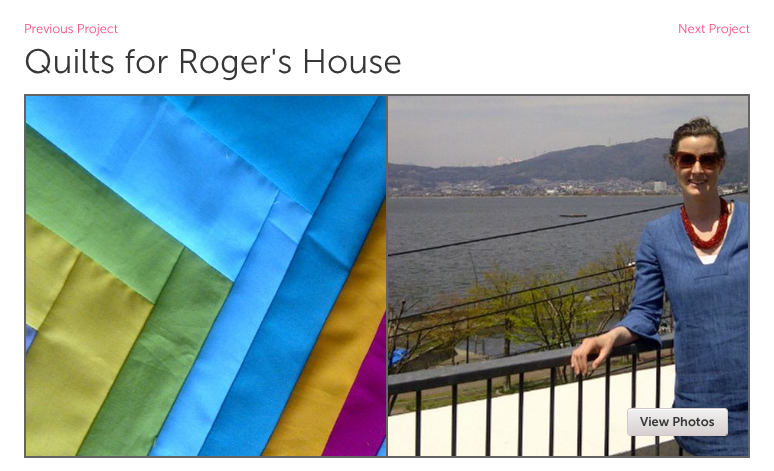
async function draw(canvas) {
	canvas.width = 774;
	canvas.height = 471;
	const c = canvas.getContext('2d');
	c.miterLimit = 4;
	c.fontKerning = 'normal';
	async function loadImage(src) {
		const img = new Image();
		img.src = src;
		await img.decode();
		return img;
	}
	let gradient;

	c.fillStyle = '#fff';
	c.fillRect(0, 0, 774, 471);
	c.font = '300 12.75px "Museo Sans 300"';
	c.fillStyle = '#ff4b7e';
	c.fillText('Previous Project', 24, 33);
	c.fillText('Next Project', 678, 33);
	c.font = '300 34px "Museo Sans 300"';
	c.fillStyle = '#373737';
	c.fillText('Quilts for Roger\'s House', 24, 73);
	c.fillStyle = '#646464';
	c.fillRect(24, 94, 726, 364);
	c.drawImage(await loadImage('img1.png'), 26, 96, 360, 360);
	c.drawImage(await loadImage('img2.png'), 388, 96, 360, 360);
	gradient = c.createLinearGradient(678, 409, 678, 435);
	gradient.addColorStop(0, '#f0f0f0');
	gradient.addColorStop(1, '#d8d0d0');
	c.fillStyle = gradient;
	c.beginPath();
	c.roundRect(628, 409, 99, 26, 2);
	c.fill();
	c.fillStyle = '#fff';
	c.beginPath();
	c.moveTo(630, 410);
	c.lineTo(725, 410);
	c.bezierCurveTo(726, 410, 727, 411, 727, 412);
	c.bezierCurveTo(727, 411, 727, 409, 725, 409);
	c.lineTo(646, 409);
	c.bezierCurveTo(644, 409, 628, 405, 628, 412);
	c.bezierCurveTo(628, 411, 629, 410, 630, 410);
	c.closePath();
	c.fill();
	c.beginPath();
	c.roundRect(627.5, 408.5, 100, 27, 2.5);
	c.strokeStyle = '#d1c8c8';
	c.stroke();
	c.font = '600 12.75px "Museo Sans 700"';
	c.fillStyle = '#373737';
	c.fillText('View Photos', 640, 426);
}

draw(document.querySelector('canvas'));
